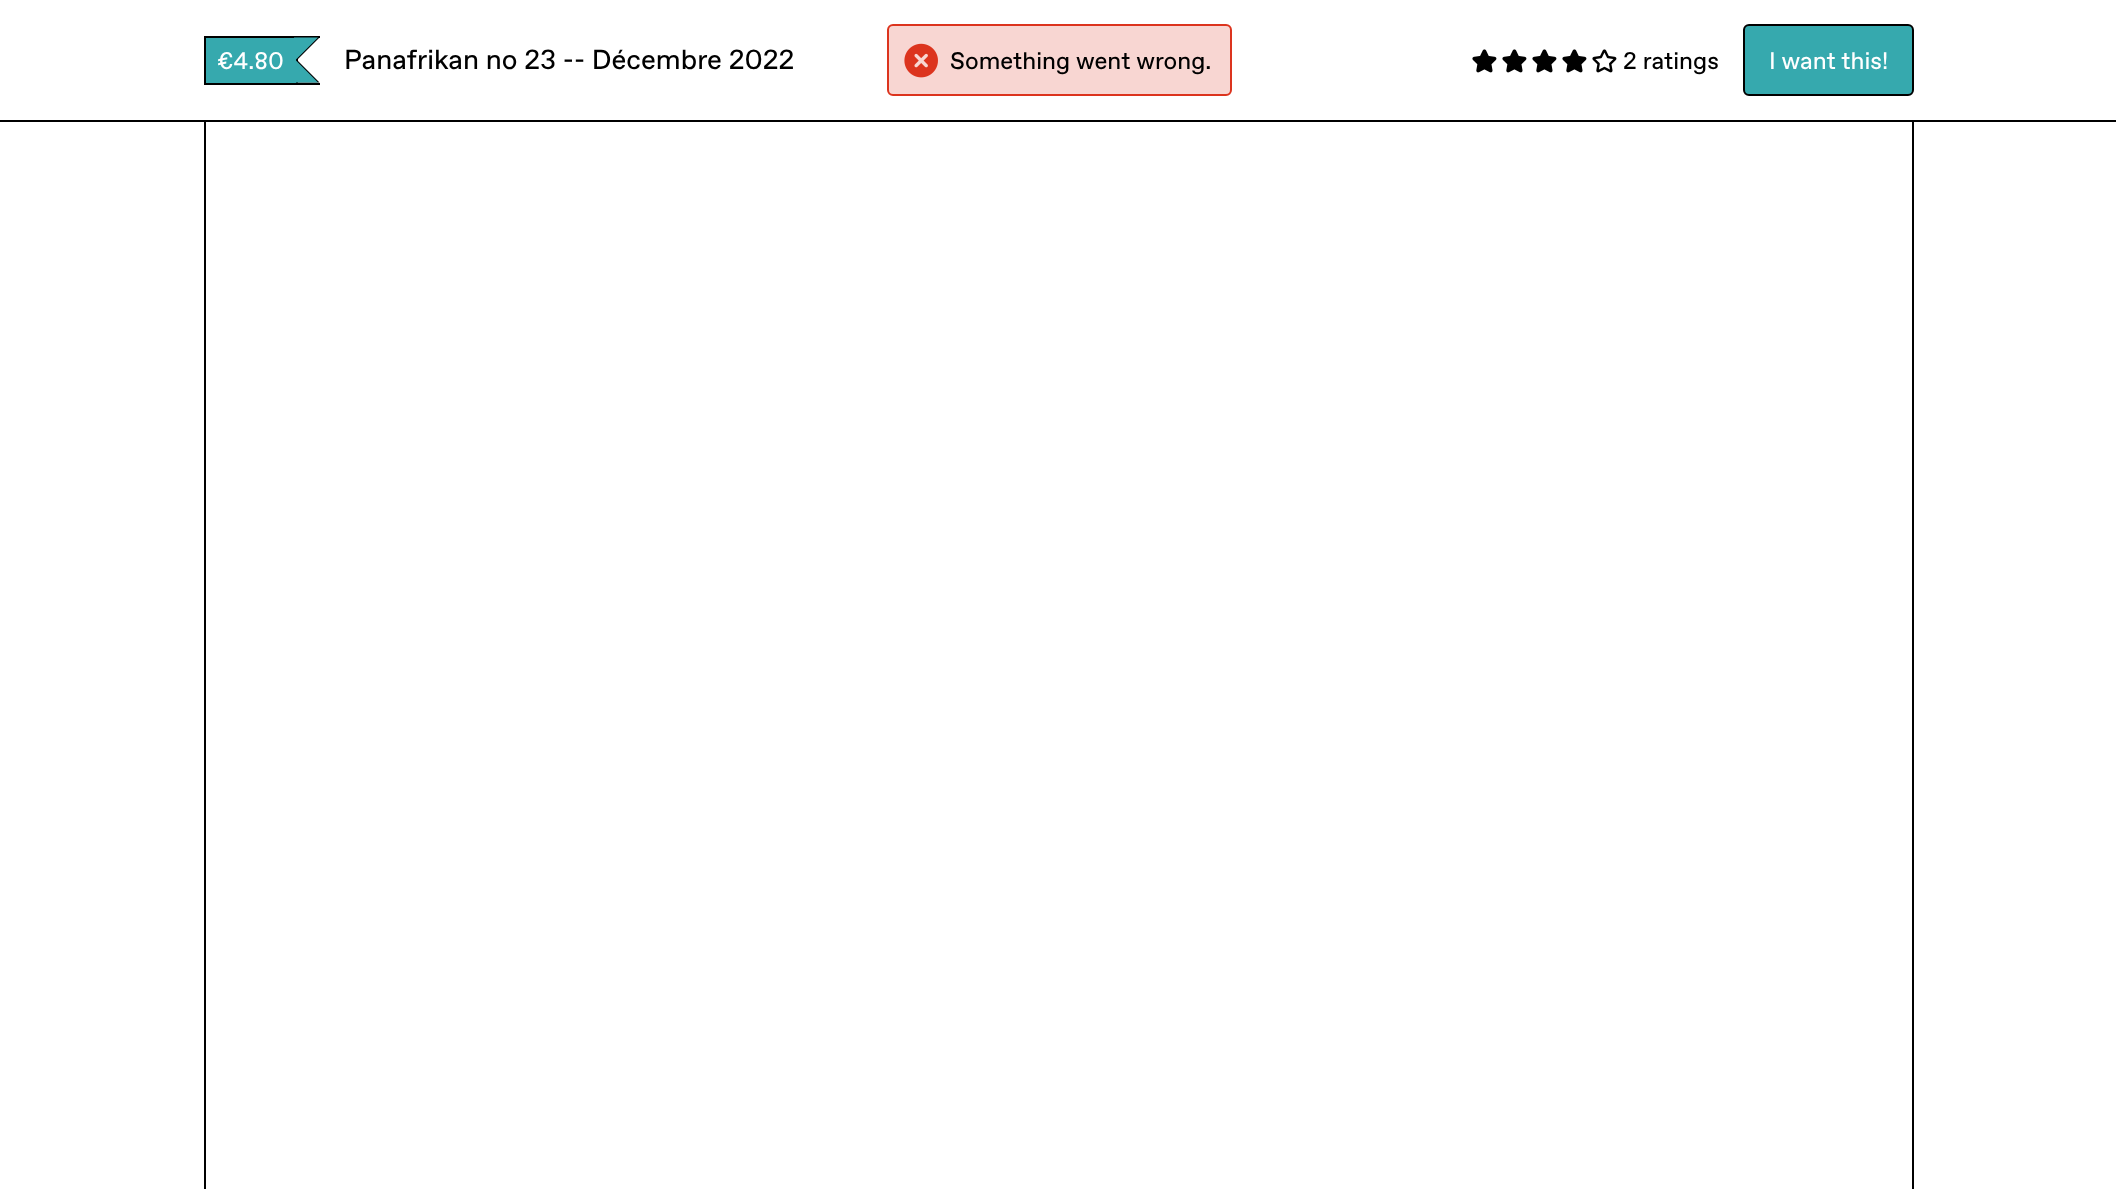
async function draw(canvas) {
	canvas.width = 2116;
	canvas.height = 1189;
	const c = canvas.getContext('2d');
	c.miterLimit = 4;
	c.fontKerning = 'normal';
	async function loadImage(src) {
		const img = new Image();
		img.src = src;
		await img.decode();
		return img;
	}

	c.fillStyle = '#fff';
	c.fillRect(0, 0, 2116, 1189);
	c.strokeStyle = '#000';
	c.lineWidth = 2;
	c.strokeRect(205, 97, 1708, 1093);
	c.fillStyle = '#000';
	c.beginPath();
	c.moveTo(0, 120);
	c.lineTo(0, 122);
	c.lineTo(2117, 122);
	c.lineTo(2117, 2);
	c.lineTo(2116, 2);
	c.lineTo(2116, 120);
	c.closePath();
	c.fill();
	for (const [x, y, w, h, color] of [
		[204, 96, 1710, 24, '#fff'],
		[204, 36, 116, 2, '#000'],
		[204, 83, 116, 2, '#000'],
		[204, 36, 2, 48, '#000'],
	]) {
		c.fillStyle = color;
		c.fillRect(x, y, w, h);
	}
	c.beginPath();
	c.moveTo(295.5, 37.5);
	c.lineTo(319.5, 37.5);
	c.lineTo(297, 60);
	c.closePath();
	c.moveTo(319.5, 82.5);
	c.lineTo(295.5, 82.5);
	c.lineTo(297, 60);
	c.closePath();
	c.fill();
	c.fillRect(296, 57, 2, 26);
	c.fillStyle = '#36a9ae';
	c.beginPath();
	c.moveTo(294, 37.5);
	c.lineTo(318, 37.5);
	c.lineTo(295.5, 60);
	c.closePath();
	c.moveTo(318, 82.5);
	c.lineTo(294, 82.5);
	c.lineTo(295.5, 60);
	c.closePath();
	c.fill();
	c.fillRect(294, 38, 2, 45);
	c.fillRect(206, 38, 88, 45);
	c.font = '24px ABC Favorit';
	c.fillStyle = '#fff';
	c.fillText('€4.80', 217, 69);
	c.font = '27.6px ABC Favorit';
	c.fillStyle = '#000';
	c.fillText('Panafrikan no 23 -- Décembre 2022', 344, 69);
	c.drawImage(await loadImage('img1.png'), 1472, 49, 25, 24);
	c.drawImage(await loadImage('img1.png'), 1502, 49, 25, 24);
	c.drawImage(await loadImage('img1.png'), 1532, 49, 25, 24);
	c.drawImage(await loadImage('img1.png'), 1562, 49, 25, 24);
	c.drawImage(await loadImage('img2.png'), 1592, 49, 25, 24);
	c.font = '24px ABC Favorit';
	c.fillText('2 ratings', 1623, 69);
	c.fillStyle = '#36a9ae';
	c.beginPath();
	c.roundRect(1744, 25, 169, 70, 5);
	c.fill();
	c.stroke();
	c.fillStyle = '#fff';
	c.fillText('I want this!', 1769, 69);
	c.fillStyle = '#f8d6d2';
	c.beginPath();
	c.roundRect(888, 25, 343, 70, 5);
	c.fill();
	c.strokeStyle = '#dc341e';
	c.stroke();
	c.drawImage(await loadImage('img3.png'), 904, 43, 34, 35);
	c.fillStyle = '#000';
	c.fillText('Something went wrong.', 950, 69);
}

draw(document.querySelector('canvas'));
